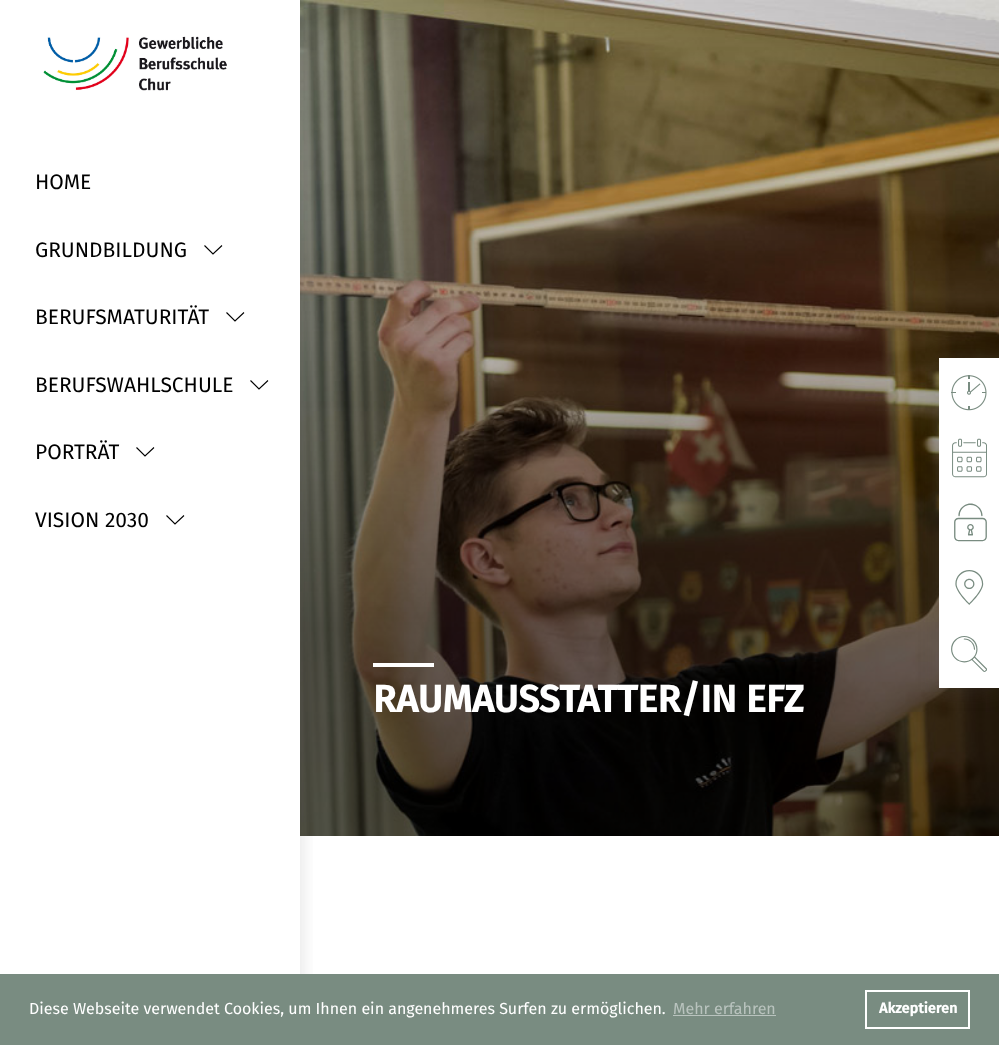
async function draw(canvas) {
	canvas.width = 999;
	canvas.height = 1045;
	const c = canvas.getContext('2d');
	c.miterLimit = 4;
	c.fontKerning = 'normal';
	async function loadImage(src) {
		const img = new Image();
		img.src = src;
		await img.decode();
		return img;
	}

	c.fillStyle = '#fff';
	c.fillRect(0, 0, 999, 1045);
	c.drawImage(await loadImage('img2.png'), 300, 0, 699, 836);
	c.save();
	c.beginPath();
	c.rect(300, 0, 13, 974);
	c.clip();
	c.fillStyle = '#60606033';
	c.filter = 'blur(10px)';
	c.beginPath();
	c.rect(0, 2, 300, 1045);
	c.fill();
	c.filter = 'none';
	c.restore();
	c.drawImage(await loadImage('img1.png'), 43, 36, 184, 55);
	c.font = '21px Fira Sans';
	c.fillStyle = '#000';
	c.fillText('HOME', 35, 189);
	c.fillText('GRUNDBILDUNG', 35, 257);
	c.beginPath();
	c.moveTo(222, 245.5);
	c.lineTo(213, 254);
	c.lineTo(204.5, 245.5);
	c.strokeStyle = '#000';
	c.lineWidth = 1.1;
	c.stroke();
	c.fillText('BERUFSMATURITÄT', 35, 324);
	c.beginPath();
	c.moveTo(244, 312.5);
	c.lineTo(235, 321);
	c.lineTo(226.5, 312.5);
	c.stroke();
	c.fillText('BERUFSWAHLSCHULE', 35, 392);
	c.beginPath();
	c.moveTo(268, 380.5);
	c.lineTo(259, 389);
	c.lineTo(250.5, 380.5);
	c.stroke();
	c.fillText('PORTRÄT', 35, 459);
	c.beginPath();
	c.moveTo(154, 447.5);
	c.lineTo(145, 456);
	c.lineTo(136.5, 447.5);
	c.stroke();
	c.fillText('VISION 2030', 35, 527);
	c.beginPath();
	c.moveTo(184, 515.5);
	c.lineTo(175, 524);
	c.lineTo(166.5, 515.5);
	c.stroke();
	c.fillStyle = '#fff';
	c.fillRect(373, 663, 61, 4);
	c.font = 'bold 37.75px Fira Sans';
	c.fillText('RAUMAUSSTATTER/IN EFZ', 373, 712);
	c.fillStyle = '#60606033';
	c.filter = 'blur(10px)';
	c.beginPath();
	c.rect(939, 360, 60, 330);
	c.fill();
	c.filter = 'none';
	c.fillStyle = '#fff';
	c.fillRect(939, 358, 60, 330);
	c.drawImage(await loadImage('img3.png'), 951, 375, 36, 36);
	c.drawImage(await loadImage('img4.png'), 952, 438, 35, 40);
	c.drawImage(await loadImage('img5.png'), 954, 503, 33, 39);
	c.drawImage(await loadImage('img6.png'), 955, 570, 29, 35);
	c.drawImage(await loadImage('img7.png'), 951, 636, 36, 36);
	c.fillStyle = '#798c81';
	c.fillRect(0, 974, 999, 71);
	c.font = '16px Fira Sans';
	c.fillStyle = '#fff';
	c.fillText('Diese Webseite verwendet Cookies, um Ihnen ein angenehmeres Surfen zu ermöglichen.', 29, 1014);
	c.fillStyle = '#b9c3be';
	c.fillText('Mehr erfahren', 673, 1014);
	c.fillRect(673, 1015, 103, 1);
	c.strokeStyle = '#fff';
	c.lineWidth = 2;
	c.strokeRect(866, 991, 103, 37);
	c.font = 'bold 14.5px Fira Sans';
	c.fillStyle = '#fff';
	c.fillText('Akzeptieren', 879, 1013);
}

draw(document.querySelector('canvas'));
